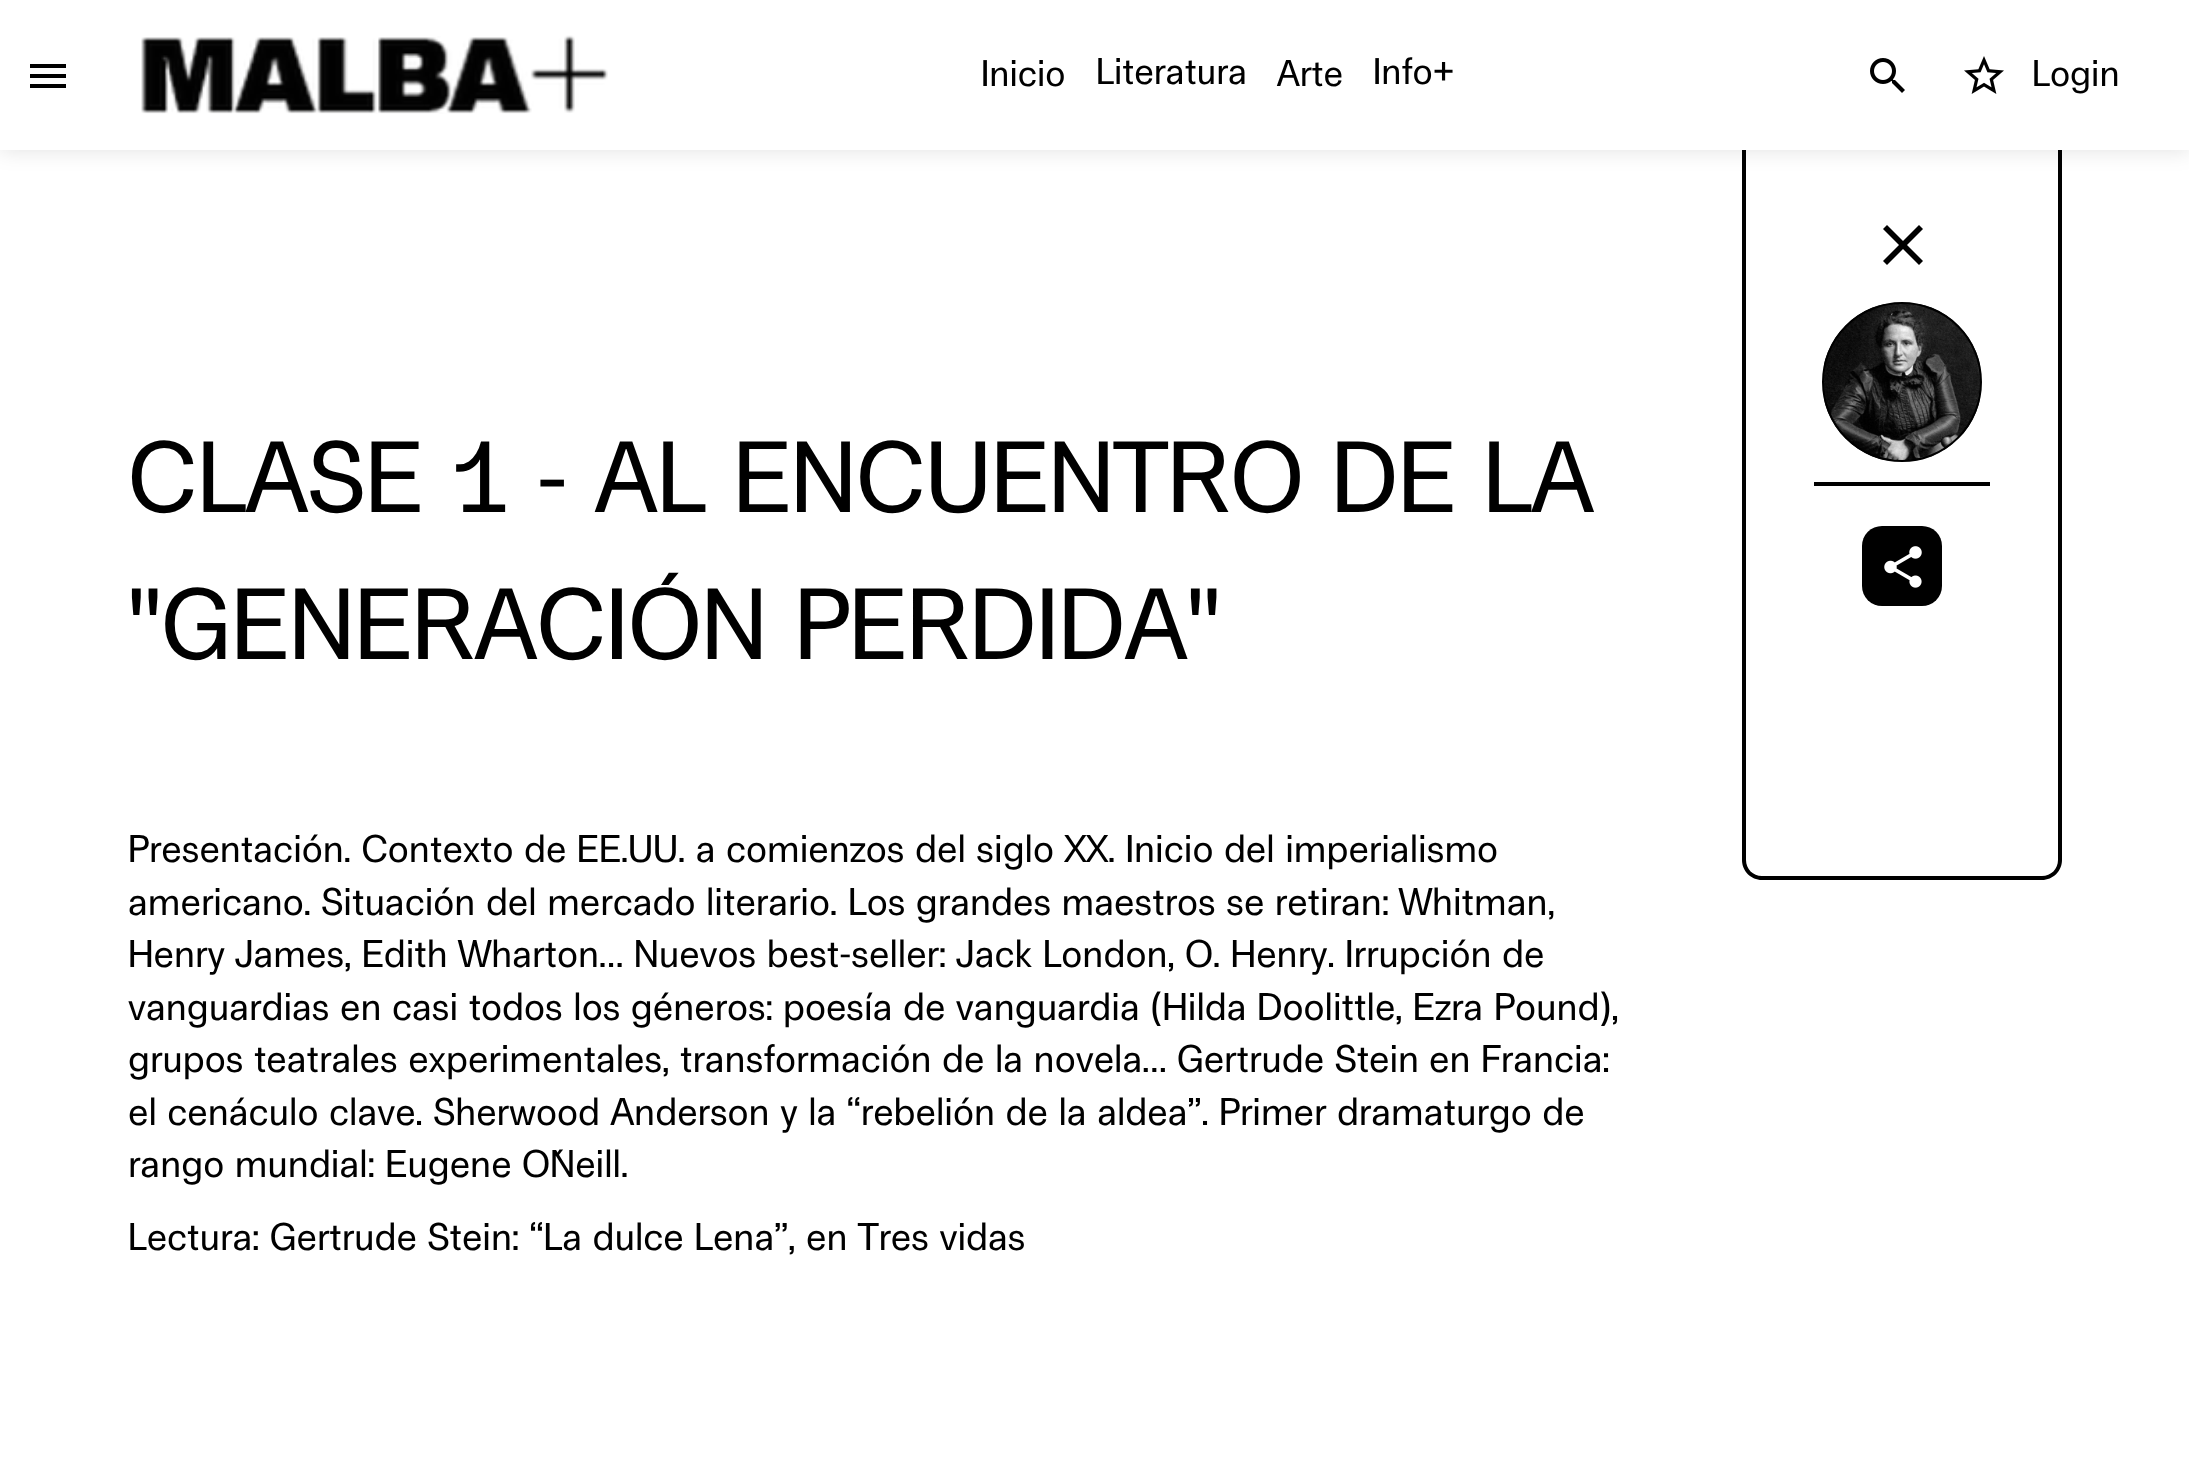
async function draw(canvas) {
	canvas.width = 2189;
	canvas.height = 1473;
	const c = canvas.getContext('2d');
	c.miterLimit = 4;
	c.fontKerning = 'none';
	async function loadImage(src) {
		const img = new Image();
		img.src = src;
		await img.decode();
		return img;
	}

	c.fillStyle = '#fff';
	c.fillRect(0, 0, 2189, 1473);
	c.fillStyle = '#000';
	c.beginPath();
	c.moveTo(1742, 110);
	c.lineTo(2062, 110);
	c.lineTo(2062, 860);
	c.bezierCurveTo(2062, 871, 2053, 880, 2042, 880);
	c.lineTo(1762, 880);
	c.bezierCurveTo(1751, 880, 1742, 871, 1742, 860);
	c.closePath();
	c.moveTo(1746, 110);
	c.lineTo(2058, 110);
	c.lineTo(2058, 860);
	c.bezierCurveTo(2058, 869, 2051, 876, 2042, 876);
	c.lineTo(1762, 876);
	c.bezierCurveTo(1753, 876, 1746, 869, 1746, 860);
	c.closePath();
	c.fill('evenodd');
	c.fillStyle = '#0000001a';
	c.filter = 'blur(10px)';
	c.beginPath();
	c.rect(0, 2, 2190, 150);
	c.fill();
	c.filter = 'none';
	c.fillStyle = '#fff';
	c.fillRect(0, 0, 2189, 150);
	c.fillStyle = '#000';
	c.beginPath();
	c.moveTo(30, 88);
	c.lineTo(66, 88);
	c.lineTo(66, 84);
	c.lineTo(30, 84);
	c.closePath();
	c.moveTo(30, 78);
	c.lineTo(66, 78);
	c.lineTo(66, 74);
	c.lineTo(30, 74);
	c.closePath();
	c.moveTo(30, 64);
	c.lineTo(30, 68);
	c.lineTo(66, 68);
	c.lineTo(66, 64);
	c.closePath();
	c.fill();
	c.drawImage(await loadImage('img1.png'), 141, 35, 467, 79);
	c.font = '36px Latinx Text';
	for (const [text, x, y] of [
		['Inicio', 981, 86],
		['Literatura', 1096, 84],
		['Arte', 1277, 86],
		['Info+', 1373, 84],
	]) {
		c.fillText(text, x, y);
	}
	c.drawImage(await loadImage('img2.png'), 1870, 58, 35, 35);
	c.drawImage(await loadImage('img3.png'), 1964, 56, 40, 38);
	c.fillText('Login', 2032, 86);
	c.font = '98px Latinx Text';
	c.fillText('CLASE 1 - AL ENCUENTRO DE LA', 128, 512);
	c.fillText('"GENERACIÓN PERDIDA"', 128, 659);
	c.font = '37.5px Latinx Text';
	for (const [text, x, y] of [
		['Presentación. Contexto', 128, 862],
		['de EE.UU. a comienzos del siglo XX. Inicio del imperialismo', 524, 862],
		['americano. Situación del mercado literario.', 128, 915],
		['Los grandes maestros se retiran:', 848, 915],
		['Whitman,', 1399, 915],
		['Henry James, Edith Wharton… Nuevos best-seller: Jack London,', 128, 967],
		['O. Henry. Irrupción de', 1185, 967],
		['vanguardias en casi todos los géneros:', 128, 1020],
		['poesía de vanguardia (Hilda Doolittle, Ezra', 783, 1020],
		['Pound),', 1494, 1020],
		['grupos teatrales experimentales,', 128, 1072],
		['transformación de la novela… Gertrude Stein', 680, 1072],
		['en Francia:', 1429, 1072],
		['el cenáculo clave. Sherwood Anderson y la “rebelión de la aldea”.', 128, 1125],
		['Primer dramaturgo de', 1219, 1125],
		['rango mundial: Eugene O´Neill.', 128, 1177],
		['Lectura: Gertrude Stein: “La dulce Lena”,', 128, 1250],
		['en Tres vidas', 806, 1250],
	]) {
		c.fillText(text, x, y);
	}
	c.beginPath();
	c.moveTo(1923, 229);
	c.lineTo(1919, 225);
	c.lineTo(1903, 241);
	c.lineTo(1887, 225);
	c.lineTo(1883, 229);
	c.lineTo(1899, 245);
	c.lineTo(1883, 261);
	c.lineTo(1887, 265);
	c.lineTo(1903, 249);
	c.lineTo(1919, 265);
	c.lineTo(1923, 261);
	c.lineTo(1907, 245);
	c.closePath();
	c.fill();
	c.drawImage(await loadImage('img4.png'), 1824, 304, 156, 156);
	c.beginPath();
	c.arc(1902, 382, 79, 0, 2 * Math.PI);
	c.strokeStyle = '#000';
	c.lineWidth = 2;
	c.stroke();
	c.fillRect(1814, 482, 176, 4);
	c.beginPath();
	c.roundRect(1862, 526, 80, 80, 20);
	c.fill();
	c.drawImage(await loadImage('img5.png'), 1884, 546, 38, 42);
}

draw(document.querySelector('canvas'));
